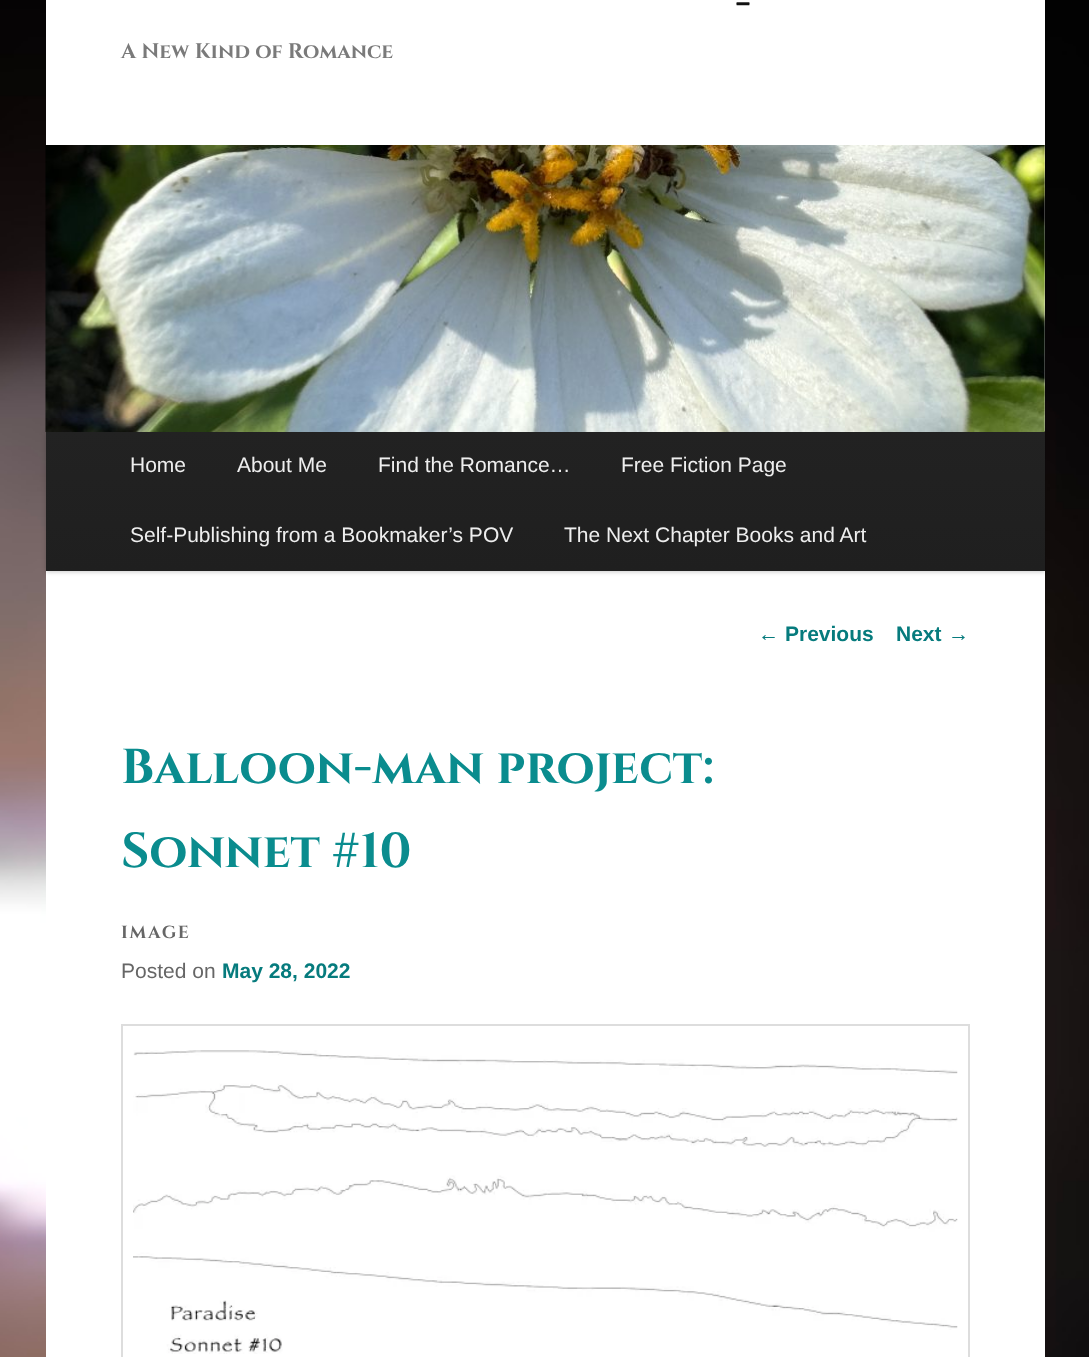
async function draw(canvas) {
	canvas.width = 1089;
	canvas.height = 1357;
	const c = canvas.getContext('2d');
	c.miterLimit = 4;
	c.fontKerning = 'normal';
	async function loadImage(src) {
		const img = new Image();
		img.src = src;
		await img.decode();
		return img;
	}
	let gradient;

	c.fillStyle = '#fff';
	c.fillRect(0, 0, 1089, 1357);
	c.drawImage(await loadImage('img1.png'), 0, 0, 1089, 1357);
	c.fillRect(46, 0, 999, 1357);
	c.font = 'bold 42px Cinzel';
	c.fillStyle = '#111';
	c.fillText('-', 735, 16);
	c.font = 'bold 21px Cinzel';
	c.fillStyle = '#7a7a7a';
	c.fillText('A New Kind of Romance', 121, 58);
	c.fillStyle = '#00000033';
	c.filter = 'blur(2px)';
	c.beginPath();
	c.rect(46, 432, 999, 140);
	c.fill();
	c.filter = 'none';
	gradient = c.createLinearGradient(545, 430, 545, 571);
	gradient.addColorStop(0, '#222');
	gradient.addColorStop(1, '#1f1f1f');
	c.fillStyle = gradient;
	c.fillRect(46, 431, 999, 140);
	c.drawImage(await loadImage('img2.png'), 45, 145, 1000, 287);
	c.font = '21px Liberation Sans';
	c.fillStyle = '#eee';
	for (const [text, x, y] of [
		['Home', 130, 472],
		['About Me', 237, 472],
		['Find the Romance…', 378, 472],
		['Free Fiction Page', 621, 472],
		['Self-Publishing from a Bookmaker’s POV', 130, 542],
		['The Next Chapter Books and Art', 564, 542],
	]) {
		c.fillText(text, x, y);
	}
	c.fillStyle = '#067b7d';
	c.fillText('←', 758, 641);
	c.font = 'bold 21px Liberation Sans';
	c.fillText('Previous', 785, 641);
	c.fillText('Next', 896, 641);
	c.font = '21px Liberation Sans';
	c.fillText('→', 948, 641);
	c.font = 'bold 49px Cinzel';
	c.fillStyle = '#0a8c8e';
	c.fillText('Balloon-man project:', 121, 783);
	c.fillText('Sonnet #10', 121, 867);
	c.letterSpacing = '1.75px';
	c.font = 'bold 17.5px Cinzel';
	c.fillStyle = '#666';
	c.fillText('IMAGE', 121, 938);
	c.letterSpacing = '0px';
	c.font = '21px Liberation Sans';
	c.fillText('Posted on', 121, 978);
	c.font = 'bold 21px Liberation Sans';
	c.fillStyle = '#067b7d';
	c.fillText('May 28, 2022', 222, 978);
	c.strokeStyle = '#ddd';
	c.lineWidth = 2;
	c.strokeRect(122, 1025, 847, 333);
	c.drawImage(await loadImage('img3.png'), 133, 1050, 825, 304);
}

draw(document.querySelector('canvas'));
